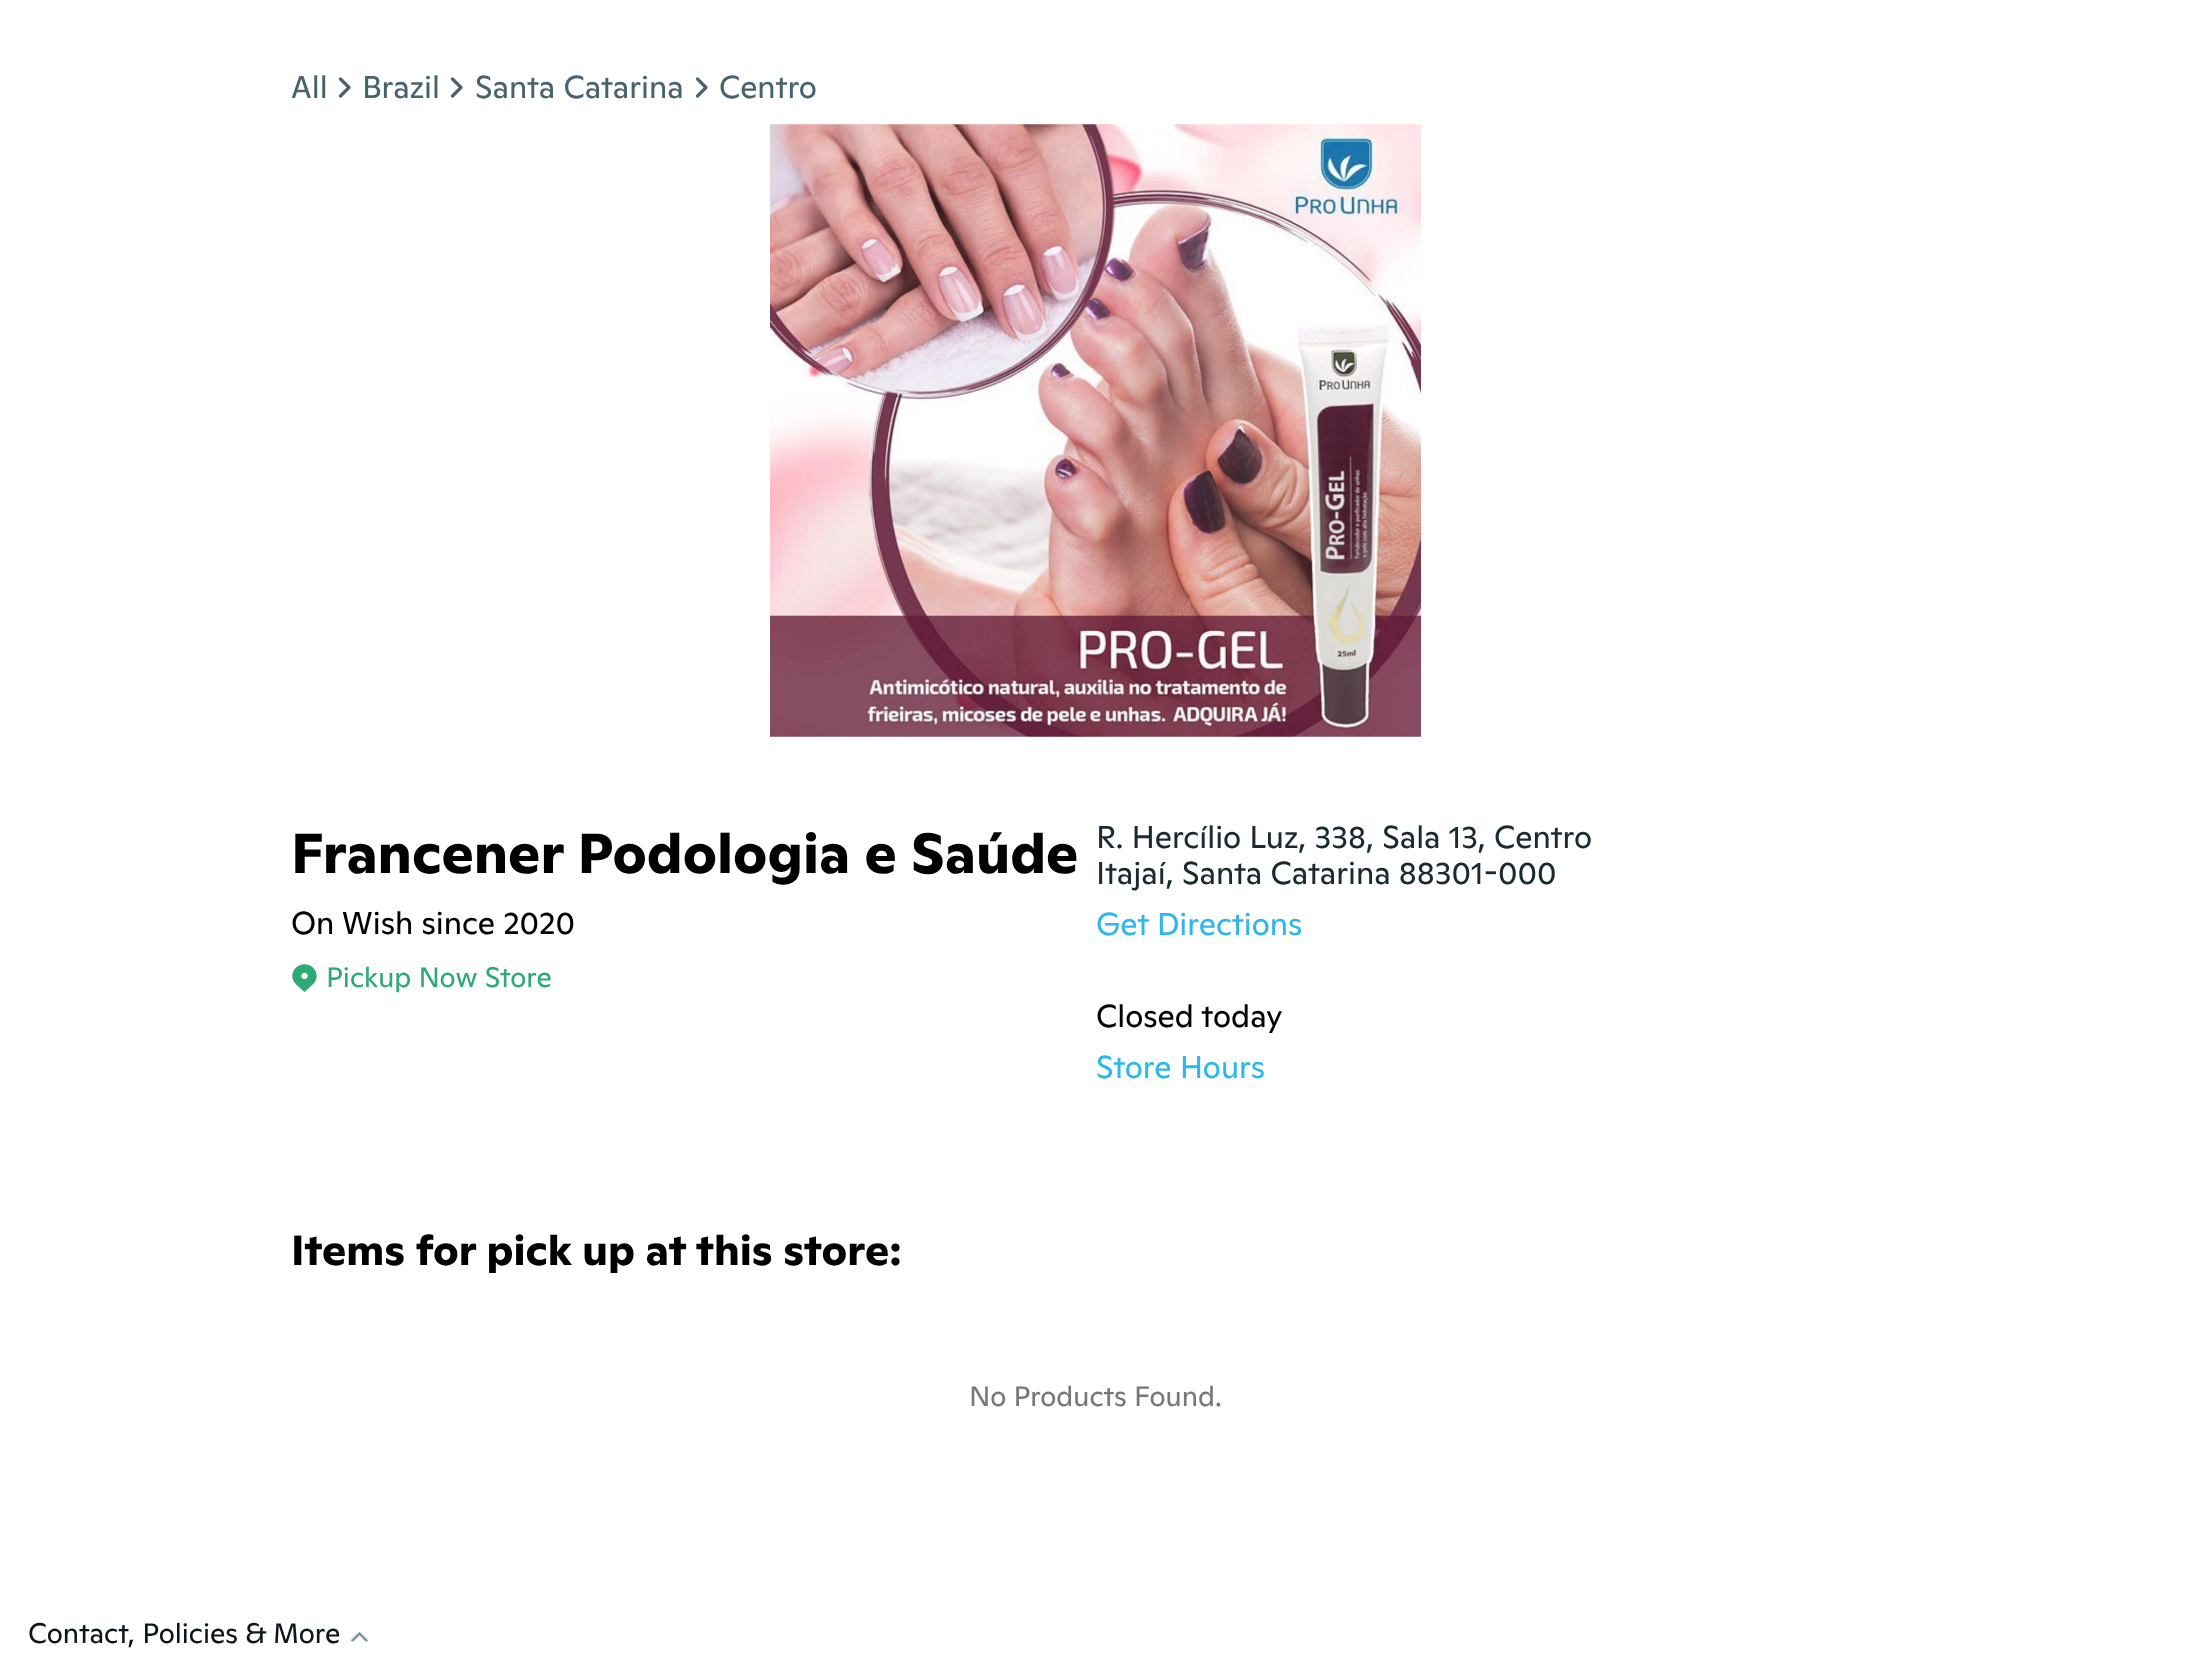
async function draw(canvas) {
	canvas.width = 2191;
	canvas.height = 1662;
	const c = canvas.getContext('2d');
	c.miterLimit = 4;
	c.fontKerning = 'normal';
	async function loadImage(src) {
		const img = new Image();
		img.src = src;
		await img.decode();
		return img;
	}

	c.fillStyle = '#fff';
	c.fillRect(0, 0, 2191, 1662);
	c.font = '31.5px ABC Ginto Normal';
	c.fillStyle = '#48636f';
	c.fillText('All', 291, 98);
	c.beginPath();
	c.moveTo(340.5, 79);
	c.lineTo(349, 87.5);
	c.lineTo(340.5, 96);
	c.strokeStyle = '#48636f';
	c.lineWidth = 3.2;
	c.lineCap = 'round';
	c.lineJoin = 'round';
	c.stroke();
	c.fillText('Brazil', 362, 98);
	c.beginPath();
	c.moveTo(452.5, 79);
	c.lineTo(461, 87.5);
	c.lineTo(452.5, 96);
	c.stroke();
	c.fillText('Santa Catarina', 475, 98);
	c.beginPath();
	c.moveTo(697.5, 79);
	c.lineTo(706, 87.5);
	c.lineTo(697.5, 96);
	c.stroke();
	c.fillText('Centro', 719, 98);
	c.drawImage(await loadImage('img1.png'), 770, 124, 651, 613);
	c.font = 'bold 56px ABC Ginto Normal';
	c.fillStyle = '#000';
	c.fillText('Francener Podologia e Saúde', 291, 873);
	c.font = '31.5px ABC Ginto Normal';
	c.fillText('On Wish since 2020', 291, 934);
	c.drawImage(await loadImage('img2.png'), 292, 964, 25, 28);
	c.font = '28px ABC Ginto Normal';
	c.fillStyle = '#2eaa77';
	c.fillText('Pickup Now Store', 326, 987);
	c.font = '31.5px ABC Ginto Normal';
	c.fillStyle = '#192a32';
	c.fillText('R. Hercílio Luz, 338, Sala 13, Centro', 1096, 848);
	c.fillText('Itajaí, Santa Catarina 88301-000', 1096, 884);
	c.fillStyle = '#2fb7ec';
	c.fillText('Get Directions', 1096, 935);
	c.fillStyle = '#000';
	c.fillText('Closed today', 1096, 1027);
	c.fillStyle = '#2fb7ec';
	c.fillText('Store Hours', 1096, 1078);
	c.font = 'bold 42px ABC Ginto Normal';
	c.fillStyle = '#000';
	c.fillText('Items for pick up at this store:', 291, 1265);
	c.font = '28px ABC Ginto Normal';
	c.fillStyle = '#777';
	c.fillText('No Products Found.', 969, 1406);
	c.fillStyle = '#0e161c';
	c.fillText('Contact, Policies & More', 28, 1643);
	c.save();
	c.beginPath();
	c.moveTo(324.5, 1641.5);
	c.lineTo(324.5, 1631);
	c.lineTo(394.5, 1631);
	c.lineTo(394.5, 1641.5);
	c.closePath();
	c.clip();
	c.beginPath();
	c.moveTo(352.5, 1640.5);
	c.lineTo(359.5, 1633.5);
	c.lineTo(366.5, 1640.5);
	c.strokeStyle = '#7e9aa6';
	c.lineWidth = 2.6;
	c.stroke();
	c.restore();
}

draw(document.querySelector('canvas'));
